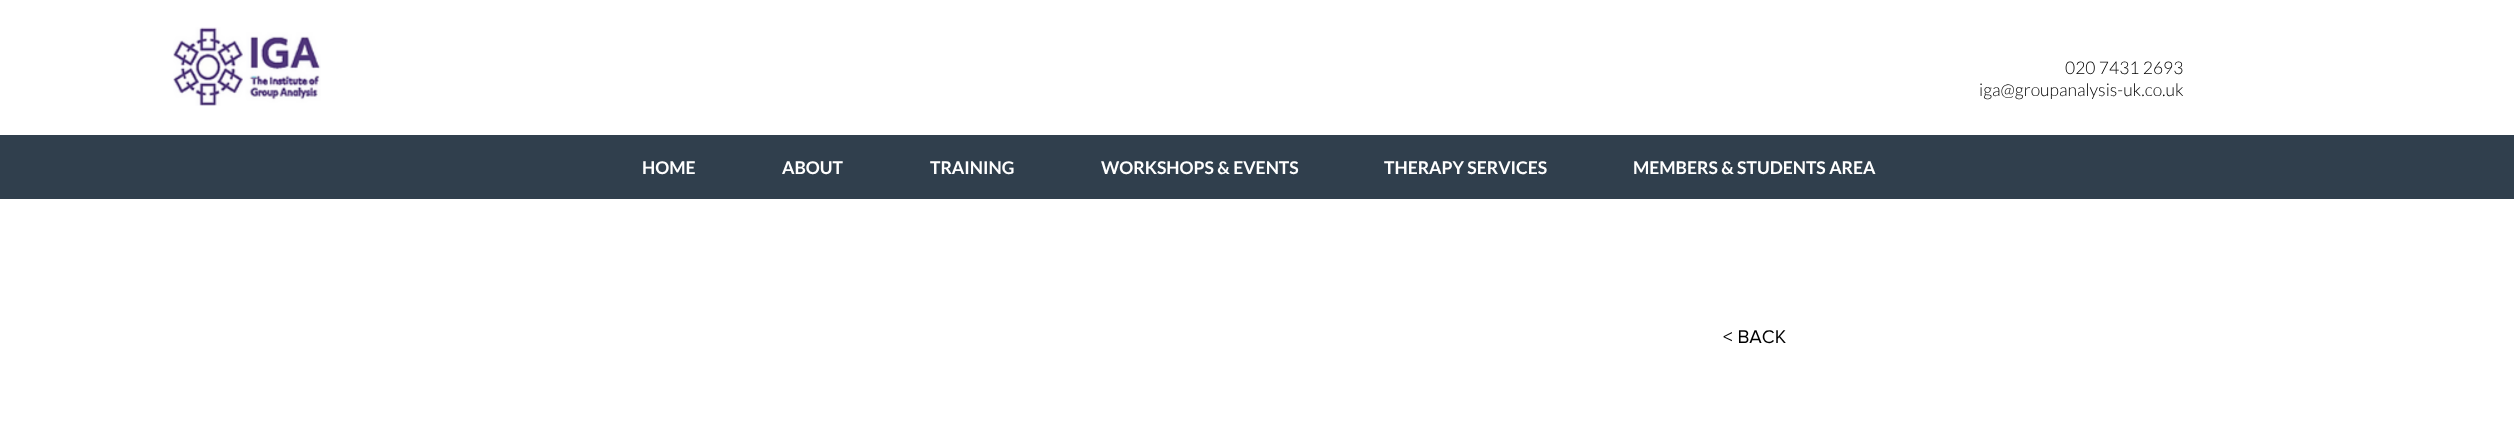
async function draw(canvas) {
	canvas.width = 2514;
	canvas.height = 422;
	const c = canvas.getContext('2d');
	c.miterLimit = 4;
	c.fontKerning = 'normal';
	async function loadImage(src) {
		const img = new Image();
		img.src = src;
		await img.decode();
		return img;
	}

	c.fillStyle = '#fff';
	c.fillRect(0, 0, 2514, 422);
	c.drawImage(await loadImage('img1.png'), 173, 27, 148, 79);
	c.font = '300 17.5px Lato';
	c.fillStyle = '#000';
	c.fillText('020 7431 2693', 2065, 74);
	c.fillText('iga@groupanalysis-uk.co.uk', 1979, 96);
	c.fillStyle = '#303f4d';
	c.fillRect(0, 135, 2514, 64);
	c.font = 'bold 17.5px Lato';
	c.fillStyle = '#fff';
	for (const [text, x, y] of [
		['HOME', 642, 174],
		['ABOUT', 782, 174],
		['TRAINING', 930, 174],
		['WORKSHOPS & EVENTS', 1101, 174],
		['THERAPY SERVICES', 1384, 174],
		['MEMBERS & STUDENTS AREA', 1633, 174],
	]) {
		c.fillText(text, x, y);
	}
	c.font = '19px "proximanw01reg"';
	c.fillStyle = '#000';
	c.fillText('< BACK', 1723, 343);
}

draw(document.querySelector('canvas'));
